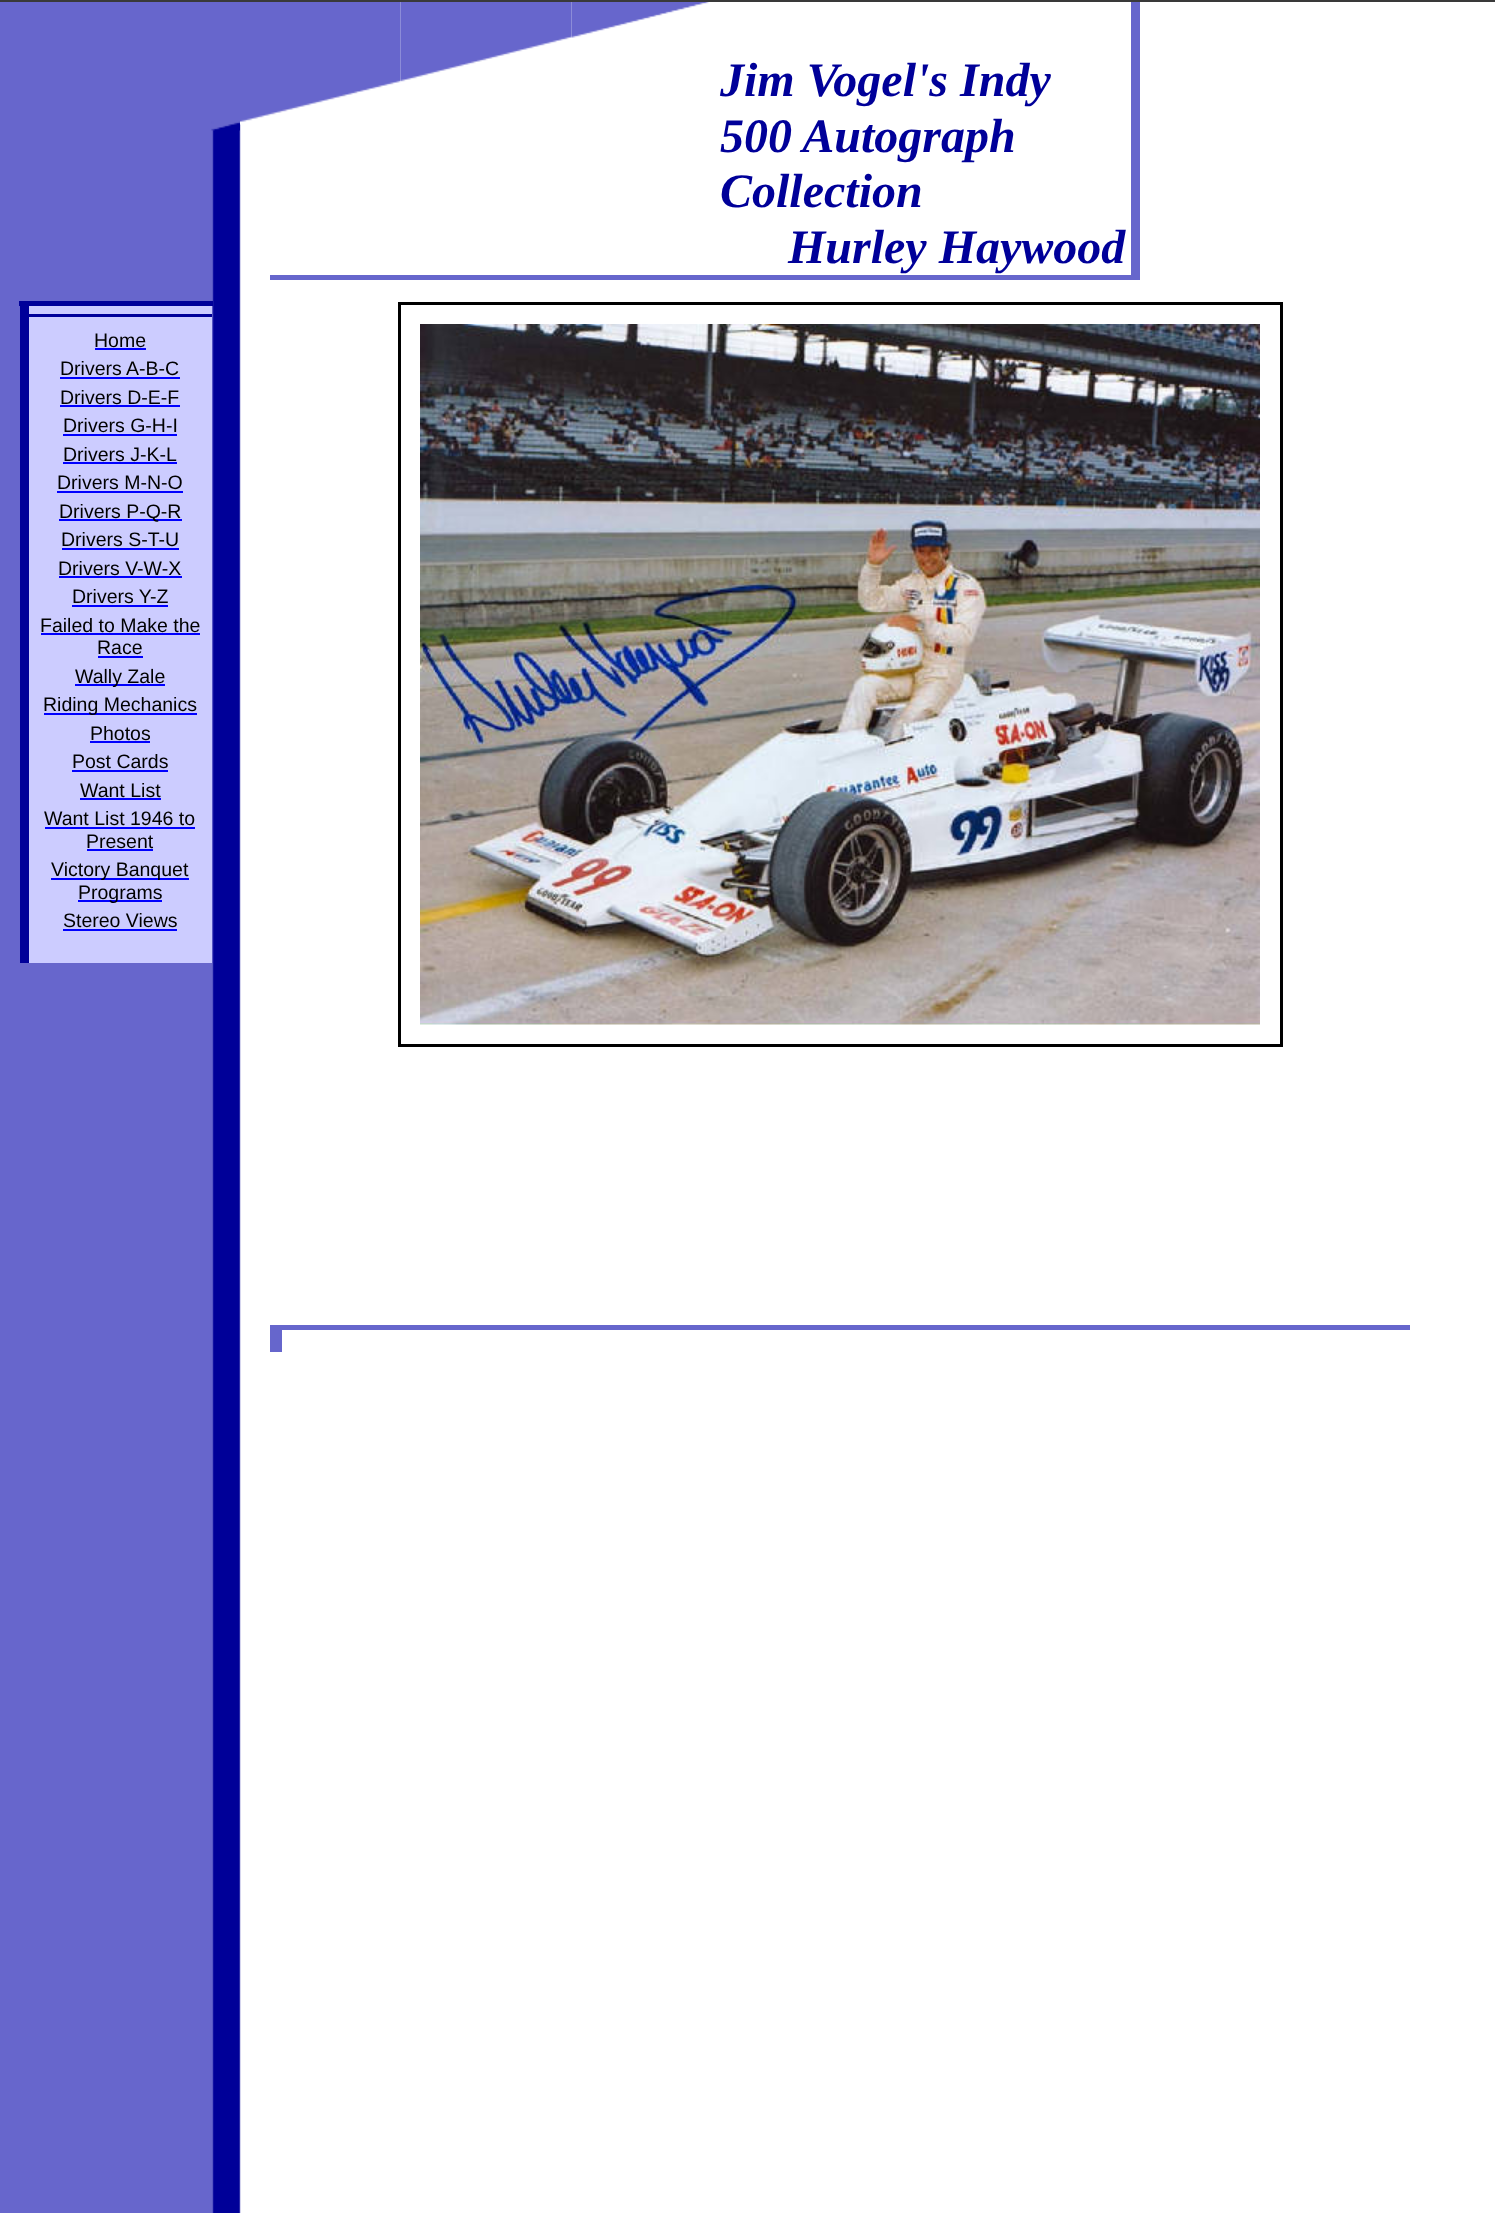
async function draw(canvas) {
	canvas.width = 1495;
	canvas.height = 2213;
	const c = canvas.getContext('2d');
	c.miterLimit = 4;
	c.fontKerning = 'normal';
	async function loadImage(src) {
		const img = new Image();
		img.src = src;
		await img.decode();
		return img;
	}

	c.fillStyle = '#fff';
	c.fillRect(0, 0, 1495, 2213);
	c.drawImage(await loadImage('img1.png'), 0, 2, 241, 2211);
	c.fillStyle = '#393939';
	c.fillRect(0, 0, 1495, 2);
	c.drawImage(await loadImage('img2.png'), 211, 2, 29, 129);
	c.drawImage(await loadImage('img3.png'), 240, 2, 161, 123);
	c.drawImage(await loadImage('img4.png'), 400, 2, 172, 80);
	c.drawImage(await loadImage('img5.png'), 571, 2, 138, 36);
	c.font = 'italic bold 48px Liberation Serif';
	c.fillStyle = '#009';
	for (const [text, x, y] of [
		['Jim Vogel\'s Indy', 720, 96],
		['500 Autograph', 720, 152],
		['Collection', 720, 207],
		['Hurley Haywood', 788, 263],
	]) {
		c.fillText(text, x, y);
	}
	for (const [x, y, w, h, color] of [
		[1131, 2, 9, 273, '#66c'],
		[270, 275, 870, 5, '#66c'],
		[19, 301, 194, 5, '#009'],
		[20, 306, 9, 657, '#009'],
		[29, 306, 183, 657, '#ccf'],
		[29, 314, 183, 3, '#009'],
	]) {
		c.fillStyle = color;
		c.fillRect(x, y, w, h);
	}
	c.font = '19.5px Liberation Sans';
	c.fillStyle = '#000';
	c.fillText('Home', 94, 347);
	c.fillStyle = '#00f';
	c.fillRect(95, 348, 51, 2);
	c.fillStyle = '#000';
	c.fillText('Drivers A-B-C', 60, 375);
	c.fillStyle = '#00f';
	c.fillRect(60, 377, 120, 2);
	c.fillStyle = '#000';
	c.fillText('Drivers D-E-F', 60, 404);
	c.fillStyle = '#00f';
	c.fillRect(60, 405, 120, 2);
	c.fillStyle = '#000';
	c.fillText('Drivers G-H-I', 63, 432);
	c.fillStyle = '#00f';
	c.fillRect(63, 434, 114, 2);
	c.fillStyle = '#000';
	c.fillText('Drivers J-K-L', 63, 461);
	c.fillStyle = '#00f';
	c.fillRect(63, 462, 114, 2);
	c.fillStyle = '#000';
	c.fillText('Drivers M-N-O', 57, 489);
	c.fillStyle = '#00f';
	c.fillRect(57, 491, 126, 2);
	c.fillRect(59, 519, 123, 2);
	c.fillStyle = '#000';
	c.fillText('Drivers P-Q-R', 59, 518);
	c.fillText('Drivers S-T-U', 61, 546);
	c.fillStyle = '#00f';
	c.fillRect(62, 548, 117, 2);
	c.fillStyle = '#000';
	c.fillText('Drivers V-W-X', 58, 575);
	c.fillStyle = '#00f';
	c.fillRect(59, 576, 123, 2);
	c.fillStyle = '#000';
	c.fillText('Drivers Y-Z', 72, 603);
	c.fillStyle = '#00f';
	c.fillRect(72, 605, 96, 2);
	c.fillStyle = '#000';
	c.fillText('Failed to Make the', 40, 632);
	c.fillStyle = '#00f';
	c.fillRect(41, 633, 159, 2);
	c.fillStyle = '#000';
	c.fillText('Race', 97, 654);
	c.fillStyle = '#00f';
	c.fillRect(98, 656, 45, 2);
	c.fillRect(75, 684, 90, 2);
	c.fillStyle = '#000';
	c.fillText('Wally Zale', 75, 683);
	c.fillStyle = '#00f';
	c.fillRect(44, 713, 153, 2);
	c.fillStyle = '#000';
	c.fillText('Riding Mechanics', 43, 711);
	c.fillText('Photos', 90, 740);
	c.fillStyle = '#00f';
	c.fillRect(90, 741, 60, 2);
	c.fillStyle = '#000';
	c.fillText('Post Cards', 72, 768);
	c.fillStyle = '#00f';
	c.fillRect(72, 770, 96, 2);
	c.fillStyle = '#000';
	c.fillText('Want List', 80, 797);
	c.fillStyle = '#00f';
	c.fillRect(80, 798, 81, 2);
	c.fillStyle = '#000';
	c.fillText('Want List 1946 to', 44, 825);
	c.fillStyle = '#00f';
	c.fillRect(45, 827, 150, 2);
	c.fillStyle = '#000';
	c.fillText('Present', 86, 848);
	c.fillStyle = '#00f';
	c.fillRect(87, 849, 66, 2);
	c.fillRect(51, 878, 138, 2);
	c.fillStyle = '#000';
	c.fillText('Victory Banquet', 51, 876);
	c.fillStyle = '#00f';
	c.fillRect(78, 900, 84, 2);
	c.fillStyle = '#000';
	c.fillText('Programs', 78, 899);
	c.fillText('Stereo Views', 63, 927);
	c.fillStyle = '#00f';
	c.fillRect(63, 929, 114, 2);
	c.strokeStyle = '#000';
	c.lineWidth = 2;
	c.strokeRect(399, 303, 883, 743);
	c.strokeRect(400, 304, 880, 741);
	c.drawImage(await loadImage('img6.png'), 420, 324, 840, 701);
	for (const [x, y, w, h, color] of [
		[1279, 305, 1, 739, '#fff'],
		[270, 1325, 1140, 5, '#66c'],
		[270, 1330, 12, 22, '#66c'],
	]) {
		c.fillStyle = color;
		c.fillRect(x, y, w, h);
	}
}

draw(document.querySelector('canvas'));
